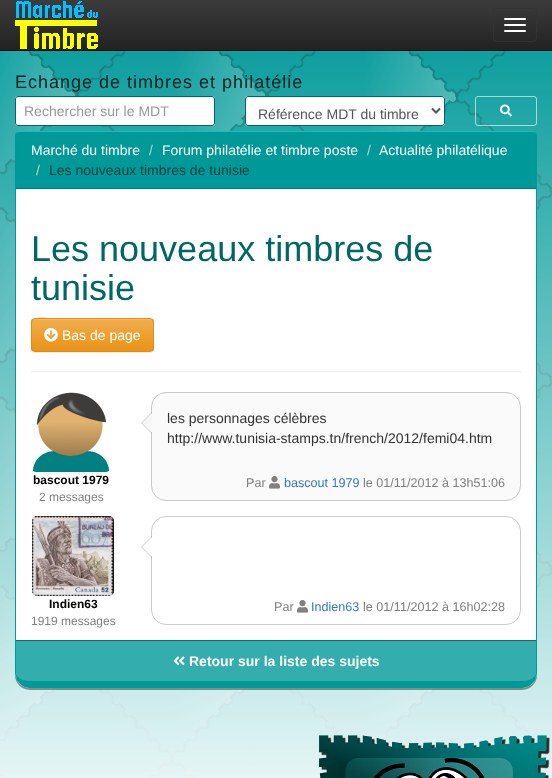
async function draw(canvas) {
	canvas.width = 552;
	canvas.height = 778;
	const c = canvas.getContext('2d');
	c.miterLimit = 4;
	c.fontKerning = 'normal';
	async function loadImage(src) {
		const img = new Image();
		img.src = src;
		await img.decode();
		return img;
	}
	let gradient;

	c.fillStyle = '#099';
	c.fillRect(0, 0, 552, 778);
	c.drawImage(await loadImage('img1.png'), 0, 51, 552, 727);
	gradient = c.createLinearGradient(276, 0, 276, 50);
	gradient.addColorStop(0, '#3c3c3c');
	gradient.addColorStop(1, '#222');
	c.fillStyle = gradient;
	c.fillRect(0, 0, 552, 50);
	c.fillStyle = '#080808';
	c.fillRect(0, 50, 552, 1);
	c.drawImage(await loadImage('img2.png'), 15, 1, 83, 48);
	c.beginPath();
	c.roundRect(493.5, 8.5, 43, 33, 3.5);
	c.strokeStyle = '#333';
	c.stroke();
	c.fillStyle = '#fff';
	c.beginPath();
	c.roundRect(504, 18, 22, 2, 1);
	c.fill();
	c.beginPath();
	c.roundRect(504, 24, 22, 2, 1);
	c.fill();
	c.beginPath();
	c.roundRect(504, 30, 22, 2, 1);
	c.fill();
	c.letterSpacing = '1px';
	c.font = '18px Liberation Sans';
	c.fillStyle = '#072121';
	c.fillText('Echange de timbres et philatélie', 15, 88);
	c.fillStyle = '#fff';
	c.beginPath();
	c.roundRect(15, 96, 200, 30, 3);
	c.fill();
	c.fillStyle = '#ececec';
	c.beginPath();
	c.moveTo(18, 98);
	c.lineTo(212, 98);
	c.lineTo(214, 99);
	c.lineTo(214, 100);
	c.bezierCurveTo(214, 99, 214, 97, 212, 97);
	c.lineTo(18, 97);
	c.bezierCurveTo(16, 97, 16, 99, 16, 100);
	c.bezierCurveTo(16, 99, 17, 98, 18, 98);
	c.closePath();
	c.fill();
	c.beginPath();
	c.roundRect(15.5, 96.5, 199, 29, 2.5);
	c.strokeStyle = '#066';
	c.stroke();
	c.letterSpacing = '0px';
	c.font = '14px Liberation Sans';
	c.fillStyle = '#999';
	c.fillText('Rechercher sur le MDT', 24, 116);
	c.fillStyle = '#fff';
	c.beginPath();
	c.roundRect(245, 96, 200, 30, 3);
	c.fill();
	c.fillStyle = '#ececec';
	c.beginPath();
	c.moveTo(248, 98);
	c.lineTo(442, 98);
	c.lineTo(444, 99);
	c.lineTo(444, 100);
	c.bezierCurveTo(444, 99, 444, 97, 442, 97);
	c.lineTo(248, 97);
	c.bezierCurveTo(246, 97, 246, 99, 246, 100);
	c.bezierCurveTo(246, 99, 247, 98, 248, 98);
	c.closePath();
	c.fill();
	c.beginPath();
	c.roundRect(245.5, 96.5, 199, 29, 2.5);
	c.stroke();
	c.beginPath();
	c.moveTo(432, 108.5);
	c.lineTo(436, 112.5);
	c.lineTo(440, 108.5);
	c.strokeStyle = '#555';
	c.lineWidth = 2;
	c.stroke();
	c.fillStyle = '#555';
	c.fillText('Référence MDT du timbre', 258, 119);
	c.beginPath();
	c.roundRect(475.5, 96.5, 61, 29, 2.5);
	c.strokeStyle = '#ffffff99';
	c.lineWidth = 1;
	c.stroke();
	c.drawImage(await loadImage('img3.png'), 500, 104, 12, 13);
	c.save();
	c.beginPath();
	c.moveTo(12, 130);
	c.lineTo(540, 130);
	c.lineTo(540, 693);
	c.lineTo(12, 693);
	c.closePath();
	c.moveTo(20, 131);
	c.lineTo(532, 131);
	c.bezierCurveTo(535, 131, 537, 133, 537, 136);
	c.lineTo(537, 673);
	c.bezierCurveTo(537, 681.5, 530.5, 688, 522, 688);
	c.lineTo(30, 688);
	c.bezierCurveTo(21.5, 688, 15, 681.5, 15, 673);
	c.lineTo(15, 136);
	c.bezierCurveTo(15, 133, 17, 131, 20, 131);
	c.closePath();
	c.clip('evenodd');
	c.fillStyle = '#00000066';
	c.filter = 'blur(0.5px)';
	c.beginPath();
	c.roundRect(15, 133, 522, 557, 15);
	c.fill();
	c.filter = 'none';
	c.restore();
	c.fillStyle = '#fff';
	c.beginPath();
	c.moveTo(20, 132);
	c.lineTo(532, 132);
	c.bezierCurveTo(534, 132, 536, 134, 536, 136);
	c.lineTo(536, 673);
	c.bezierCurveTo(536, 677, 530, 681, 522, 681);
	c.lineTo(30, 681);
	c.bezierCurveTo(22, 681, 16, 677, 16, 673);
	c.lineTo(16, 136);
	c.bezierCurveTo(16, 134, 18, 132, 20, 132);
	c.closePath();
	c.fill();
	c.fillStyle = '#0ec2c4';
	c.beginPath();
	c.moveTo(20, 131);
	c.bezierCurveTo(18, 131, 17, 132, 16, 132);
	c.lineTo(17, 133);
	c.lineTo(20, 132);
	c.lineTo(532, 132);
	c.lineTo(535, 133);
	c.lineTo(536, 132);
	c.bezierCurveTo(535, 132, 534, 131, 532, 131);
	c.closePath();
	c.fill();
	c.fillStyle = '#099';
	c.beginPath();
	c.moveTo(537, 673);
	c.lineTo(537, 136);
	c.bezierCurveTo(537, 134, 536, 133, 536, 132);
	c.lineTo(535, 133);
	c.lineTo(536, 136);
	c.lineTo(536, 673);
	c.lineTo(535, 676);
	c.lineTo(536, 679);
	c.closePath();
	c.fill();
	c.beginPath();
	c.moveTo(30, 688);
	c.lineTo(522, 688);
	c.bezierCurveTo(528, 688, 533, 684, 536, 679);
	c.lineTo(535, 676);
	c.bezierCurveTo(533, 679, 528, 681, 522, 681);
	c.lineTo(30, 681);
	c.bezierCurveTo(24, 681, 19, 679, 17, 676);
	c.lineTo(16, 679);
	c.bezierCurveTo(19, 684, 24, 688, 30, 688);
	c.closePath();
	c.fill();
	c.beginPath();
	c.moveTo(15, 136);
	c.lineTo(15, 673);
	c.lineTo(16, 679);
	c.lineTo(17, 676);
	c.lineTo(16, 673);
	c.lineTo(16, 136);
	c.lineTo(17, 133);
	c.lineTo(16, 132);
	c.bezierCurveTo(16, 133, 15, 134, 15, 136);
	c.closePath();
	c.fill();
	c.beginPath();
	c.roundRect(16, 132, 520, 57, [3, 3, 0, 0]);
	c.fill();
	c.fillStyle = '#007a7a';
	c.fillRect(16, 188, 520, 1);
	c.fillStyle = '#fff';
	c.fillText('Marché du timbre', 31, 155);
	c.fillStyle = '#ccc';
	c.fillText('/', 149, 155);
	c.fillStyle = '#fff';
	c.fillText('Forum philatélie et timbre poste', 162, 155);
	c.fillStyle = '#ccc';
	c.fillText('/', 367, 155);
	c.fillStyle = '#fff';
	c.fillText('Actualité philatélique', 379, 155);
	c.fillStyle = '#ccc';
	c.fillText('/', 36, 175);
	c.fillStyle = '#003d3d';
	c.fillText('Les nouveaux timbres de tunisie', 49, 175);
	c.fillStyle = '#eee';
	c.fillRect(31, 371, 490, 1);
	c.font = '36px Liberation Sans';
	c.fillStyle = '#066';
	c.fillText('Les nouveaux timbres de', 31, 261);
	c.fillText('tunisie', 31, 300);
	c.fillStyle = '#00000012';
	c.filter = 'blur(0.5px)';
	c.beginPath();
	c.roundRect(31, 319, 123, 34, 4);
	c.fill();
	c.filter = 'none';
	c.save();
	c.beginPath();
	c.roundRect(31, 318, 123, 34, 4);
	c.clip();
	gradient = c.createLinearGradient(93, 319, 93, 351);
	gradient.addColorStop(0, '#f0ad4e');
	gradient.addColorStop(1, '#eb9316');
	c.fillStyle = gradient;
	c.fillRect(31, 319, 123, 32);
	c.restore();
	c.fillStyle = '#f2b968';
	c.beginPath();
	c.moveTo(35, 320);
	c.lineTo(150, 320);
	c.bezierCurveTo(152, 320, 153, 321, 153, 323);
	c.bezierCurveTo(153, 321, 152, 319, 150, 319);
	c.lineTo(54, 319);
	c.bezierCurveTo(53, 319, 32, 314, 32, 323);
	c.bezierCurveTo(32, 321, 33, 320, 35, 320);
	c.closePath();
	c.fill();
	c.beginPath();
	c.roundRect(31.5, 318.5, 122, 33, 3.5);
	c.strokeStyle = '#e38d13';
	c.stroke();
	c.drawImage(await loadImage('img4.png'), 44, 328, 14, 14);
	c.font = '14px Liberation Sans';
	c.fillStyle = '#fff';
	c.fillText('Bas de page', 62, 340);
	c.drawImage(await loadImage('img5.png'), 32, 392, 78, 80);
	c.font = 'bold 12px Liberation Sans';
	c.fillStyle = '#000';
	c.fillText('bascout 1979', 33, 484);
	c.font = '12px Liberation Sans';
	c.fillStyle = '#808080';
	c.fillText('2 messages', 39, 501);
	c.fillStyle = '#fafafa';
	c.beginPath();
	c.roundRect(151.5, 392.5, 369, 108, 14.5);
	c.fill();
	c.strokeStyle = '#c8c8c8';
	c.stroke();
	c.fillStyle = '#00000033';
	c.beginPath();
	c.moveTo(152, 412);
	c.lineTo(152, 434);
	c.lineTo(141, 423);
	c.closePath();
	c.fill();
	c.font = '14px Liberation Sans';
	c.fillStyle = '#333';
	c.fillText('les personnages célèbres', 167, 423);
	c.fillText('http://www.tunisia-stamps.tn/french/2012/femi04.htm', 167, 443);
	c.fillStyle = '#f6f6f6';
	c.beginPath();
	c.moveTo(152, 413);
	c.lineTo(152, 433);
	c.lineTo(142, 423);
	c.closePath();
	c.fill();
	c.font = '12.6px Liberation Sans';
	c.fillStyle = '#808080';
	c.fillText('Par', 246, 487);
	c.drawImage(await loadImage('img6.png'), 269, 476, 11, 13);
	c.fillStyle = '#337ab7';
	c.fillText('bascout 1979', 284, 487);
	c.fillStyle = '#808080';
	c.fillText('le 01/11/2012 à 13h51:06', 363, 487);
	c.drawImage(await loadImage('img7.png'), 32, 516, 82, 80);
	c.font = 'bold 12px Liberation Sans';
	c.fillStyle = '#000';
	c.fillText('Indien63', 49, 608);
	c.font = '12px Liberation Sans';
	c.fillStyle = '#808080';
	c.fillText('1919 messages', 31, 625);
	c.beginPath();
	c.roundRect(151.5, 516.5, 369, 108, 14.5);
	c.strokeStyle = '#ccc';
	c.stroke();
	c.fillStyle = '#00000033';
	c.beginPath();
	c.moveTo(152, 536);
	c.lineTo(152, 558);
	c.lineTo(141, 547);
	c.closePath();
	c.fill();
	c.fillStyle = '#fff';
	c.beginPath();
	c.moveTo(152, 537);
	c.lineTo(152, 557);
	c.lineTo(142, 547);
	c.closePath();
	c.fill();
	c.font = '12.6px Liberation Sans';
	c.fillStyle = '#808080';
	c.fillText('Par', 274, 611);
	c.drawImage(await loadImage('img8.png'), 297, 600, 11, 13);
	c.fillStyle = '#337ab7';
	c.fillText('Indien63', 311, 611);
	c.fillStyle = '#808080';
	c.fillText('le 01/11/2012 à 16h02:28', 363, 611);
	c.fillStyle = '#009999cc';
	c.beginPath();
	c.roundRect(16, 640, 520, 41, [0, 0, 8, 8]);
	c.fill();
	c.fillStyle = '#1f6868';
	c.fillRect(16, 640, 520, 1);
	c.drawImage(await loadImage('img9.png'), 173, 656, 12, 10);
	c.font = 'bold 14px Liberation Sans';
	c.fillStyle = '#fff';
	c.fillText('Retour sur la liste des sujets', 189, 666);
	c.drawImage(await loadImage('img10.png'), 319, 735, 231, 43);
}

draw(document.querySelector('canvas'));
